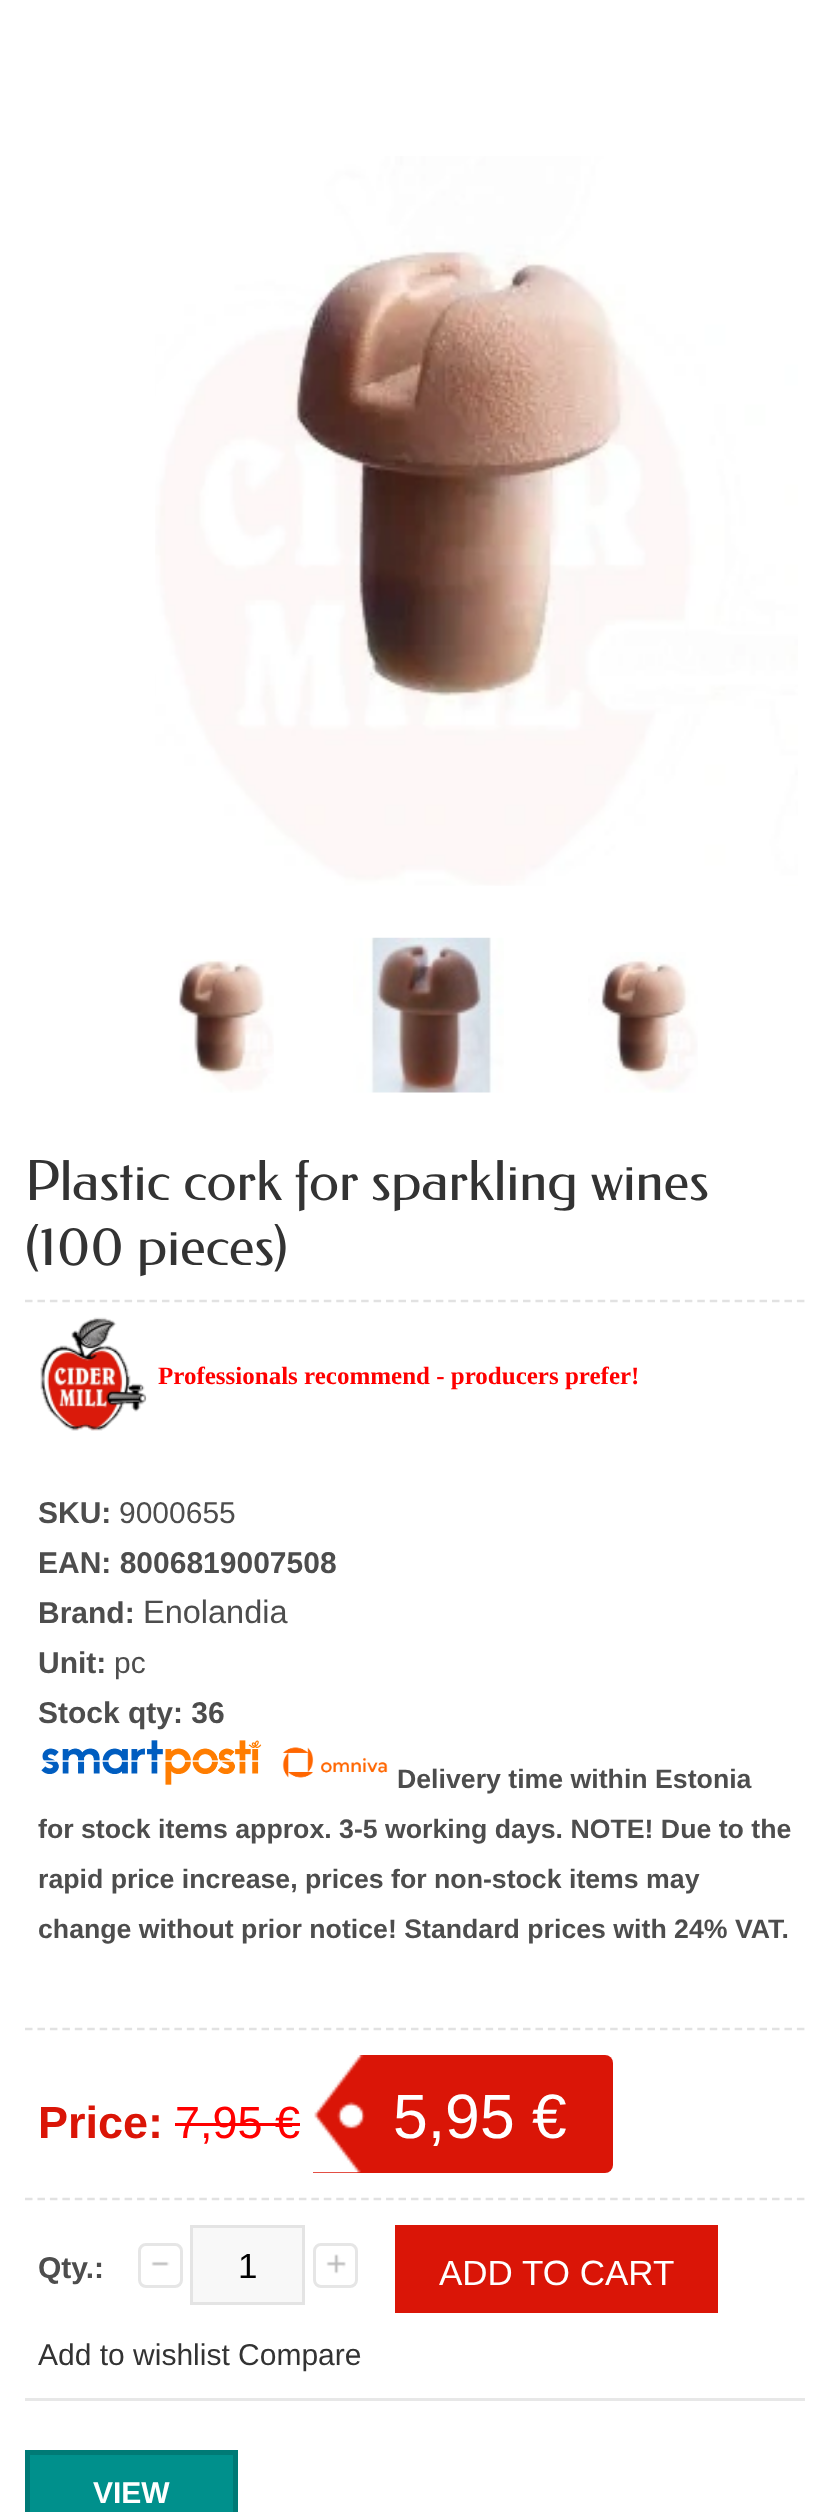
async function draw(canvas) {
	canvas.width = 828;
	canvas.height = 2512;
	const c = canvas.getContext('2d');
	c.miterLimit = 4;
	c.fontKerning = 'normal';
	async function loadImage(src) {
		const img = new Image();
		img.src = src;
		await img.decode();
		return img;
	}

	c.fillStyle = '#fff';
	c.fillRect(0, 0, 828, 2512);
	c.drawImage(await loadImage('img1.png'), 155, 156, 643, 730);
	c.drawImage(await loadImage('img2.png'), 178, 959, 96, 134);
	c.drawImage(await loadImage('img3.png'), 353, 937, 151, 156);
	c.drawImage(await loadImage('img4.png'), 588, 952, 110, 141);
	c.font = '55px Federo';
	c.fillStyle = '#333';
	c.fillText('Plastic cork for sparkling wines', 25, 1200);
	c.fillText('(100 pieces)', 25, 1265);
	c.beginPath();
	c.moveTo(25, 1301);
	c.lineTo(805, 1301);
	c.strokeStyle = '#e2e2e2';
	c.lineWidth = 2.5;
	c.setLineDash([7.5, 4.95]);
	c.stroke();
	c.beginPath();
	c.moveTo(25, 2029);
	c.lineTo(805, 2029);
	c.stroke();
	c.drawImage(await loadImage('img5.png'), 40, 1317, 107, 114);
	c.font = 'bold 25px Liberation Serif';
	c.fillStyle = '#f00';
	c.fillText('Professionals recommend - producers prefer!', 158, 1384);
	c.font = 'bold 30px Liberation Sans';
	c.fillStyle = '#4d4d4d';
	c.fillText('SKU:', 38, 1523);
	c.font = '30px Liberation Sans';
	c.fillText('9000655', 119, 1523);
	c.font = 'bold 30px Liberation Sans';
	c.fillText('EAN: 8006819007508', 38, 1573);
	c.fillText('Brand:', 38, 1623);
	c.font = '32.5px Liberation Sans';
	c.fillText('Enolandia', 143, 1623);
	c.font = 'bold 30px Liberation Sans';
	c.fillText('Unit:', 38, 1673);
	c.font = '30px Liberation Sans';
	c.fillText('pc', 114, 1673);
	c.font = 'bold 30px Liberation Sans';
	c.fillText('Stock qty: 36', 38, 1723);
	c.drawImage(await loadImage('img6.png'), 41, 1740, 221, 45);
	c.drawImage(await loadImage('img7.png'), 282, 1747, 106, 31);
	c.font = 'bold 26.7px Liberation Sans';
	for (const [text, x, y] of [
		['Delivery time within Estonia', 397, 1788],
		['for stock items approx. 3-5 working days. NOTE! Due to the', 38, 1838],
		['rapid price increase, prices for non-stock items may', 38, 1888],
		['change without prior notice! Standard prices with 24% VAT.', 38, 1938],
	]) {
		c.fillText(text, x, y);
	}
	c.beginPath();
	c.moveTo(25, 2199);
	c.lineTo(805, 2199);
	c.stroke();
	c.font = 'bold 45px Liberation Sans';
	c.fillStyle = '#da1507';
	c.fillText('Price:', 38, 2138);
	c.font = '45px Liberation Sans';
	c.fillStyle = '#f00';
	c.fillText('7,95 €', 175, 2138);
	c.fillRect(175, 2123, 125, 3);
	c.fillStyle = '#da1507';
	c.beginPath();
	c.roundRect(313, 2055, 300, 118, [0, 8, 8, 0]);
	c.fill();
	c.drawImage(await loadImage('img8.png'), 313, 2055, 52, 118);
	c.font = '62.5px Liberation Sans';
	c.fillStyle = '#fff';
	c.fillText('5,95 €', 393, 2138);
	c.fillStyle = '#e7e7e7';
	c.fillRect(25, 2398, 780, 3);
	c.font = 'bold 30px Liberation Sans';
	c.fillStyle = '#4d4d4d';
	c.fillText('Qty.:', 38, 2278);
	c.drawImage(await loadImage('img9.png'), 151, 2261, 19, 5);
	c.beginPath();
	c.roundRect(139.5, 2244.5, 42, 42, 6.5);
	c.strokeStyle = '#e6e6e6';
	c.lineWidth = 3;
	c.setLineDash([]);
	c.stroke();
	c.fillStyle = '#f8f8f8';
	c.beginPath();
	c.rect(191.5, 2226.5, 112, 77);
	c.fill();
	c.strokeStyle = '#e4e4e4';
	c.stroke();
	c.font = '35px Liberation Sans';
	c.fillStyle = '#000';
	c.fillText('1', 238, 2278);
	c.drawImage(await loadImage('img10.png'), 326, 2254, 20, 20);
	c.beginPath();
	c.roundRect(314.5, 2244.5, 42, 42, 6.5);
	c.strokeStyle = '#e6e6e6';
	c.stroke();
	c.fillStyle = '#da1507';
	c.fillRect(395, 2225, 323, 88);
	c.fillStyle = '#fff';
	c.fillText('ADD TO CART', 439, 2285);
	c.font = '30px Liberation Sans';
	c.fillStyle = '#333';
	c.fillText('Add to wishlist Compare', 38, 2365);
	c.fillStyle = '#00908c';
	c.beginPath();
	c.rect(27.5, 2452.5, 208, 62);
	c.fill();
	c.strokeStyle = '#007a76';
	c.lineWidth = 5;
	c.stroke();
	c.font = 'bold 30px Liberation Sans';
	c.fillStyle = '#fff';
	c.fillText('VIEW', 93, 2503);
}

draw(document.querySelector('canvas'));
